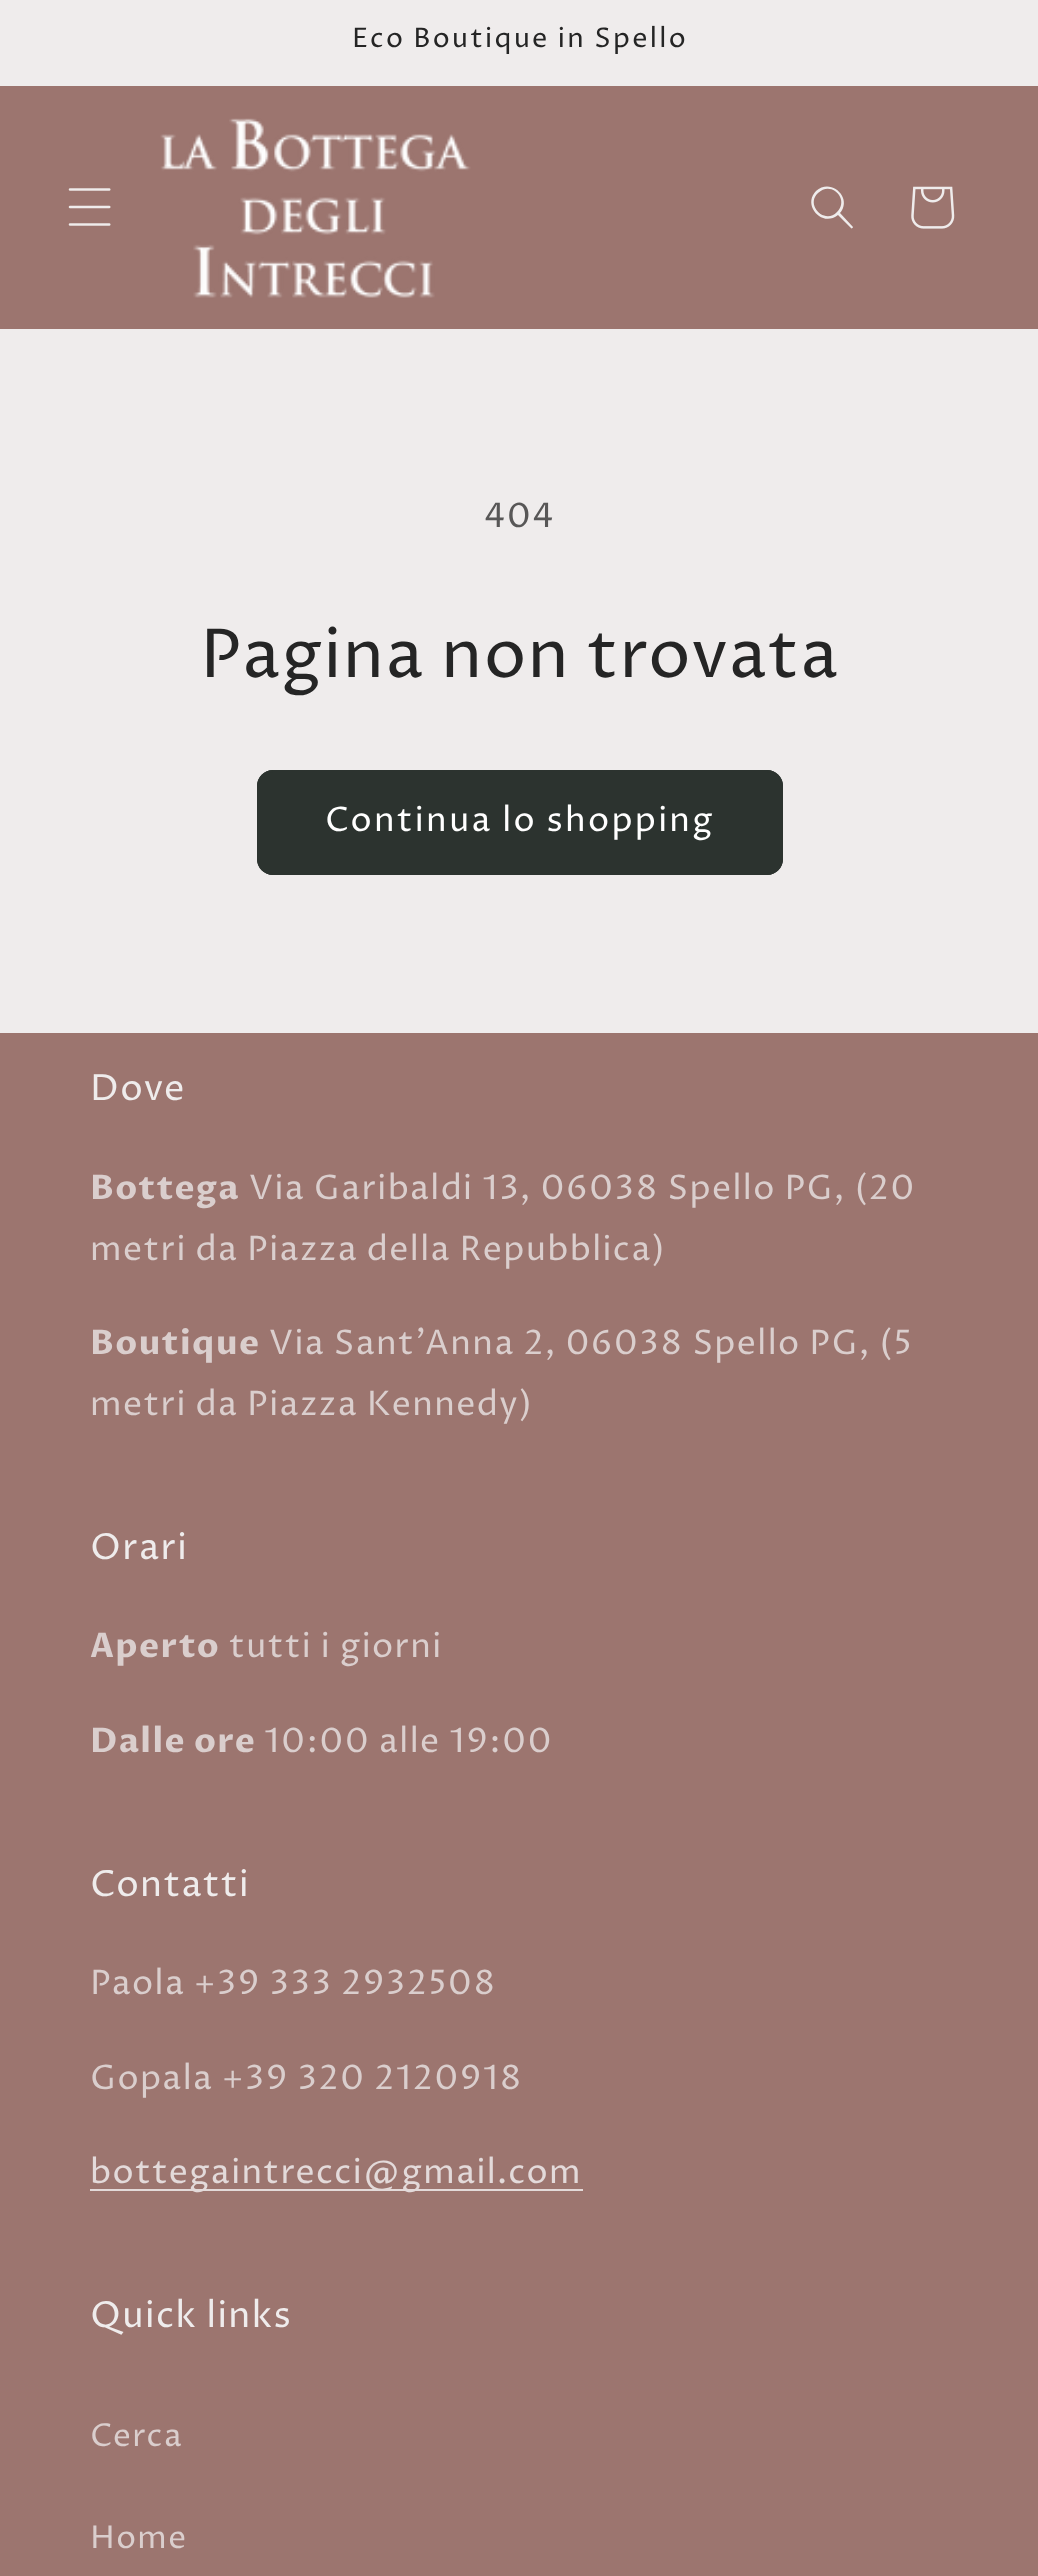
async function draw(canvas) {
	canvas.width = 1038;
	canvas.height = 2576;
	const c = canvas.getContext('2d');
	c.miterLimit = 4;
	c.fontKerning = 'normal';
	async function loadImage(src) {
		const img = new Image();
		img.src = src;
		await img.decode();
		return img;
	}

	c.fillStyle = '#efecec';
	c.fillRect(0, 0, 1038, 2576);
	c.letterSpacing = '2.25px';
	c.font = '27px Proza Libre';
	c.fillStyle = '#252525';
	c.fillText('Eco Boutique in Spello', 352, 47);
	c.fillStyle = '#9c756f';
	c.fillRect(0, 86, 1038, 243);
	c.drawImage(await loadImage('img1.png'), 68, 188, 43, 38);
	c.drawImage(await loadImage('img2.png'), 160, 118, 311, 180);
	c.fillStyle = '#efecec';
	c.beginPath();
	c.moveTo(837, 212);
	c.bezierCurveTo(825, 225, 805, 205, 818, 193);
	c.bezierCurveTo(831, 180, 850, 199, 837, 212);
	c.moveTo(838, 215);
	c.bezierCurveTo(822, 228, 802, 205, 816, 191);
	c.bezierCurveTo(831, 177, 853, 198, 840, 213);
	c.lineTo(853, 227);
	c.bezierCurveTo(853, 228, 851, 229, 851, 228);
	c.closePath();
	c.fill('evenodd');
	c.drawImage(await loadImage('img3.png'), 911, 186, 44, 43);
	c.letterSpacing = '1.35px';
	c.font = '33.75px Proza Libre';
	c.fillStyle = '#585757';
	c.fillText('404', 484, 527);
	c.font = '67.5px Proza Libre';
	c.fillStyle = '#252525';
	c.fillText('Pagina non trovata', 200, 677);
	c.fillStyle = '#2c332f';
	c.beginPath();
	c.roundRect(257, 770, 526, 105, 16);
	c.fill();
	c.beginPath();
	c.roundRect(258, 771, 524, 103, 15);
	c.strokeStyle = '#2c332f';
	c.lineWidth = 2;
	c.stroke();
	c.letterSpacing = '2.25px';
	c.font = '33.75px Proza Libre';
	c.fillStyle = '#fff';
	c.fillText('Continua lo shopping', 325, 831);
	c.fillStyle = '#9c756f';
	c.fillRect(0, 1033, 1038, 1543);
	c.letterSpacing = '1.35px';
	c.font = '36px Proza Libre';
	c.fillStyle = '#efecec';
	c.fillText('Dove', 90, 1100);
	c.font = 'bold 33.75px Proza Libre';
	c.fillStyle = '#dacecd';
	c.fillText('Bottega', 90, 1199);
	c.font = '33.75px Proza Libre';
	c.fillText('Via Garibaldi 13, 06038 Spello PG, (20', 249, 1199);
	c.fillText('metri da Piazza della Repubblica)', 90, 1260);
	c.font = 'bold 33.75px Proza Libre';
	c.fillText('Boutique', 90, 1354);
	c.font = '33.75px Proza Libre';
	c.fillText('Via Sant’Anna 2, 06038 Spello PG, (5', 269, 1354);
	c.fillText('metri da Piazza Kennedy)', 90, 1415);
	c.font = '36px Proza Libre';
	c.fillStyle = '#efecec';
	c.fillText('Orari', 90, 1559);
	c.font = 'bold 33.75px Proza Libre';
	c.fillStyle = '#dacecd';
	c.fillText('Aperto', 90, 1657);
	c.font = '33.75px Proza Libre';
	c.fillText('tutti i giorni', 229, 1657);
	c.font = 'bold 33.75px Proza Libre';
	c.fillText('Dalle ore', 90, 1752);
	c.font = '33.75px Proza Libre';
	c.fillText('10:00 alle 19:00', 264, 1752);
	c.font = '36px Proza Libre';
	c.fillStyle = '#efecec';
	c.fillText('Contatti', 90, 1896);
	c.font = '33.75px Proza Libre';
	c.fillStyle = '#dacecd';
	c.fillText('Paola +39 333 2932508', 90, 1994);
	c.fillText('Gopala +39 320 2120918', 90, 2089);
	c.fillStyle = '#e3dad9';
	c.fillRect(90, 2189, 493, 2);
	c.fillStyle = '#e3dada';
	c.fillText('bottegaintrecci@gmail.com', 90, 2183);
	c.font = '36px Proza Libre';
	c.fillStyle = '#efecec';
	c.fillText('Quick links', 90, 2327);
	c.font = '31.5px Proza Libre';
	c.fillStyle = '#dacecd';
	c.fillText('Cerca', 90, 2446);
	c.fillText('Home', 90, 2548);
}

draw(document.querySelector('canvas'));
